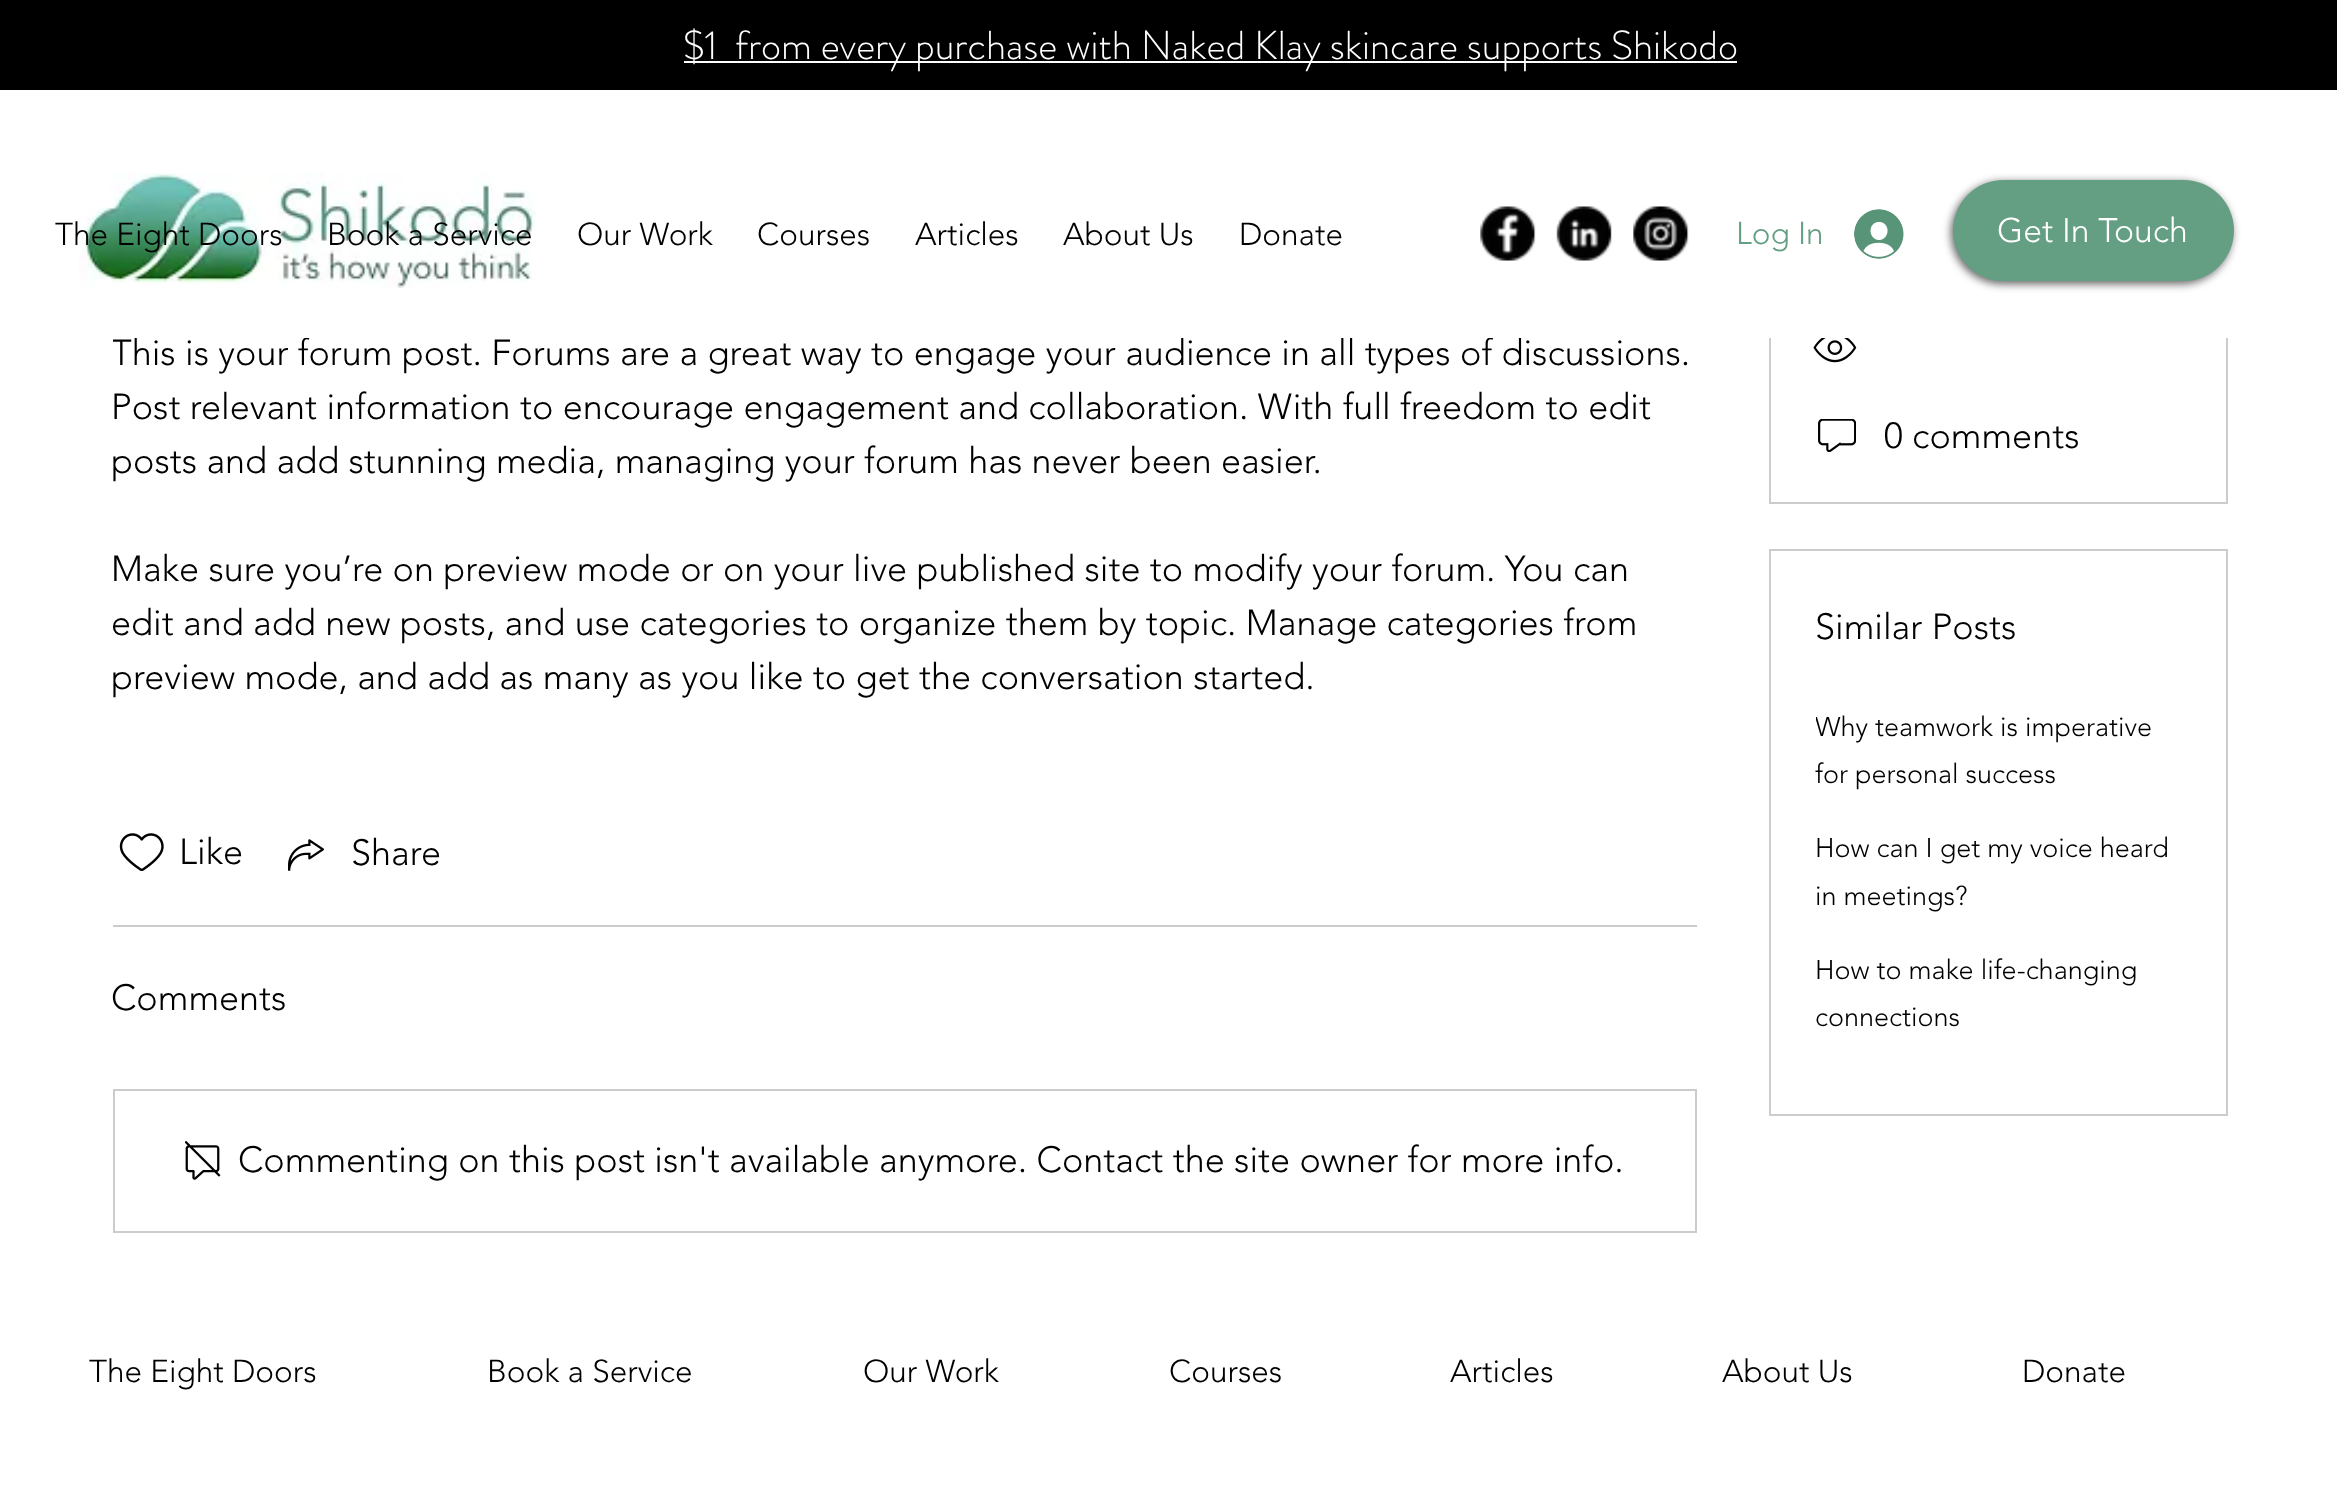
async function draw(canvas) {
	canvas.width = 2337;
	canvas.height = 1505;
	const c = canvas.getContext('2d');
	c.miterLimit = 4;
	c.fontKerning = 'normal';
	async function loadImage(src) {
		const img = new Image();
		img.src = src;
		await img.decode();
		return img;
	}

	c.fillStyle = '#fff';
	c.fillRect(0, 0, 2337, 1505);
	c.fillStyle = '#000';
	c.fillRect(0, 0, 2337, 90);
	c.fillStyle = '#fff';
	c.fillRect(684, 61, 1053, 2);
	c.font = '300 40.5px "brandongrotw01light"';
	c.fillText('$1  from every purchase with Naked Klay skincare supports Shikodo', 683, 59);
	c.save();
	c.beginPath();
	c.rect(113, 326, 1584, 432);
	c.clip();
	c.font = '300 36px "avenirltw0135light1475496"';
	c.fillStyle = '#000';
	c.fillText('This is your forum post. Forums are a great way to engage your audience in all types of discussions.', 111, 365);
	c.restore();
	c.strokeStyle = '#ccc';
	c.lineWidth = 2;
	c.strokeRect(1770, 280, 457, 223);
	c.fillRect(134, 279, 2094, 59);
	c.drawImage(await loadImage('img1.png'), 79, 173, 457, 115);
	c.font = '300 31.5px "avenirltw0135light1475496"';
	c.fillStyle = '#000';
	for (const [text, x, y] of [
		['The Eight Doors', 55, 245],
		['Book a Service', 327, 245],
		['Our Work', 577, 245],
		['Courses', 757, 245],
		['Articles', 915, 245],
		['About Us', 1063, 245],
		['Donate', 1239, 245],
	]) {
		c.fillText(text, x, y);
	}
	c.drawImage(await loadImage('img2.png'), 1480, 206, 56, 55);
	c.drawImage(await loadImage('img3.png'), 1556, 206, 56, 55);
	c.drawImage(await loadImage('img4.png'), 1633, 206, 56, 55);
	c.fillStyle = '#649e83';
	c.fillText('Log In', 1736, 244);
	c.drawImage(await loadImage('img5.png'), 1854, 209, 50, 50);
	c.fillStyle = '#00000099';
	c.filter = 'blur(4.5px)';
	c.beginPath();
	c.roundRect(1951, 182, 281, 102, 51);
	c.fill();
	c.filter = 'none';
	c.fillStyle = '#649e83';
	c.beginPath();
	c.roundRect(1953, 180, 281, 101, 50.5);
	c.fill();
	c.font = '300 33.75px "avenirltw0135light1475496"';
	c.fillStyle = '#fff';
	c.fillText('Get In Touch', 1997, 242);
	c.font = '300 36px "avenirltw0135light1475496"';
	c.fillStyle = '#000';
	for (const [text, x, y] of [
		['Post relevant information to encourage engagement and collaboration. With full freedom to edit', 111, 419],
		['posts and add stunning media, managing your forum has never been easier.', 111, 473],
		['Make sure you’re on preview mode or on your live published site to modify your forum. You can', 111, 581],
		['edit and add new posts, and use categories to organize them by topic. Manage categories from', 111, 635],
		['preview mode, and add as many as you like to get the conversation started.', 111, 689],
	]) {
		c.fillText(text, x, y);
	}
	c.drawImage(await loadImage('img6.png'), 119, 833, 45, 38);
	c.fillText('Like', 179, 864);
	c.drawImage(await loadImage('img7.png'), 288, 839, 36, 32);
	c.fillText('Share', 351, 865);
	c.fillStyle = '#ccc';
	c.fillRect(113, 925, 1584, 2);
	c.fillStyle = '#000';
	c.fillText('Comments', 111, 1010);
	c.strokeRect(114, 1090, 1582, 142);
	c.drawImage(await loadImage('img8.png'), 185, 1141, 36, 39);
	c.fillText('Commenting on this post isn\'t available anymore. Contact the site owner for more info.', 238, 1172);
	c.drawImage(await loadImage('img9.png'), 1813, 338, 44, 25);
	c.drawImage(await loadImage('img10.png'), 1818, 419, 38, 33);
	c.fillText('0 comments', 1884, 448);
	c.strokeRect(1770, 550, 457, 565);
	c.fillText('Similar Posts', 1815, 639);
	c.save();
	c.beginPath();
	c.rect(1816, 704, 364, 95);
	c.clip();
	c.font = '300 27px "avenirltw0135light1475496"';
	c.fillText('Why teamwork is imperative', 1815, 736);
	c.restore();
	c.font = '300 27px "avenirltw0135light1475496"';
	for (const [text, x, y] of [
		['for personal success', 1815, 783],
		['How can I get my voice heard', 1815, 857],
		['in meetings?', 1815, 905],
		['How to make life-changing', 1815, 979],
		['connections', 1815, 1026],
	]) {
		c.fillText(text, x, y);
	}
	c.font = '300 31.5px "avenirltw0135light1475496"';
	for (const [text, x, y] of [
		['The Eight Doors', 89, 1382],
		['Book a Service', 487, 1382],
		['Our Work', 863, 1382],
		['Courses', 1169, 1382],
		['Articles', 1450, 1382],
		['About Us', 1722, 1382],
		['Donate', 2022, 1382],
	]) {
		c.fillText(text, x, y);
	}
}

draw(document.querySelector('canvas'));
